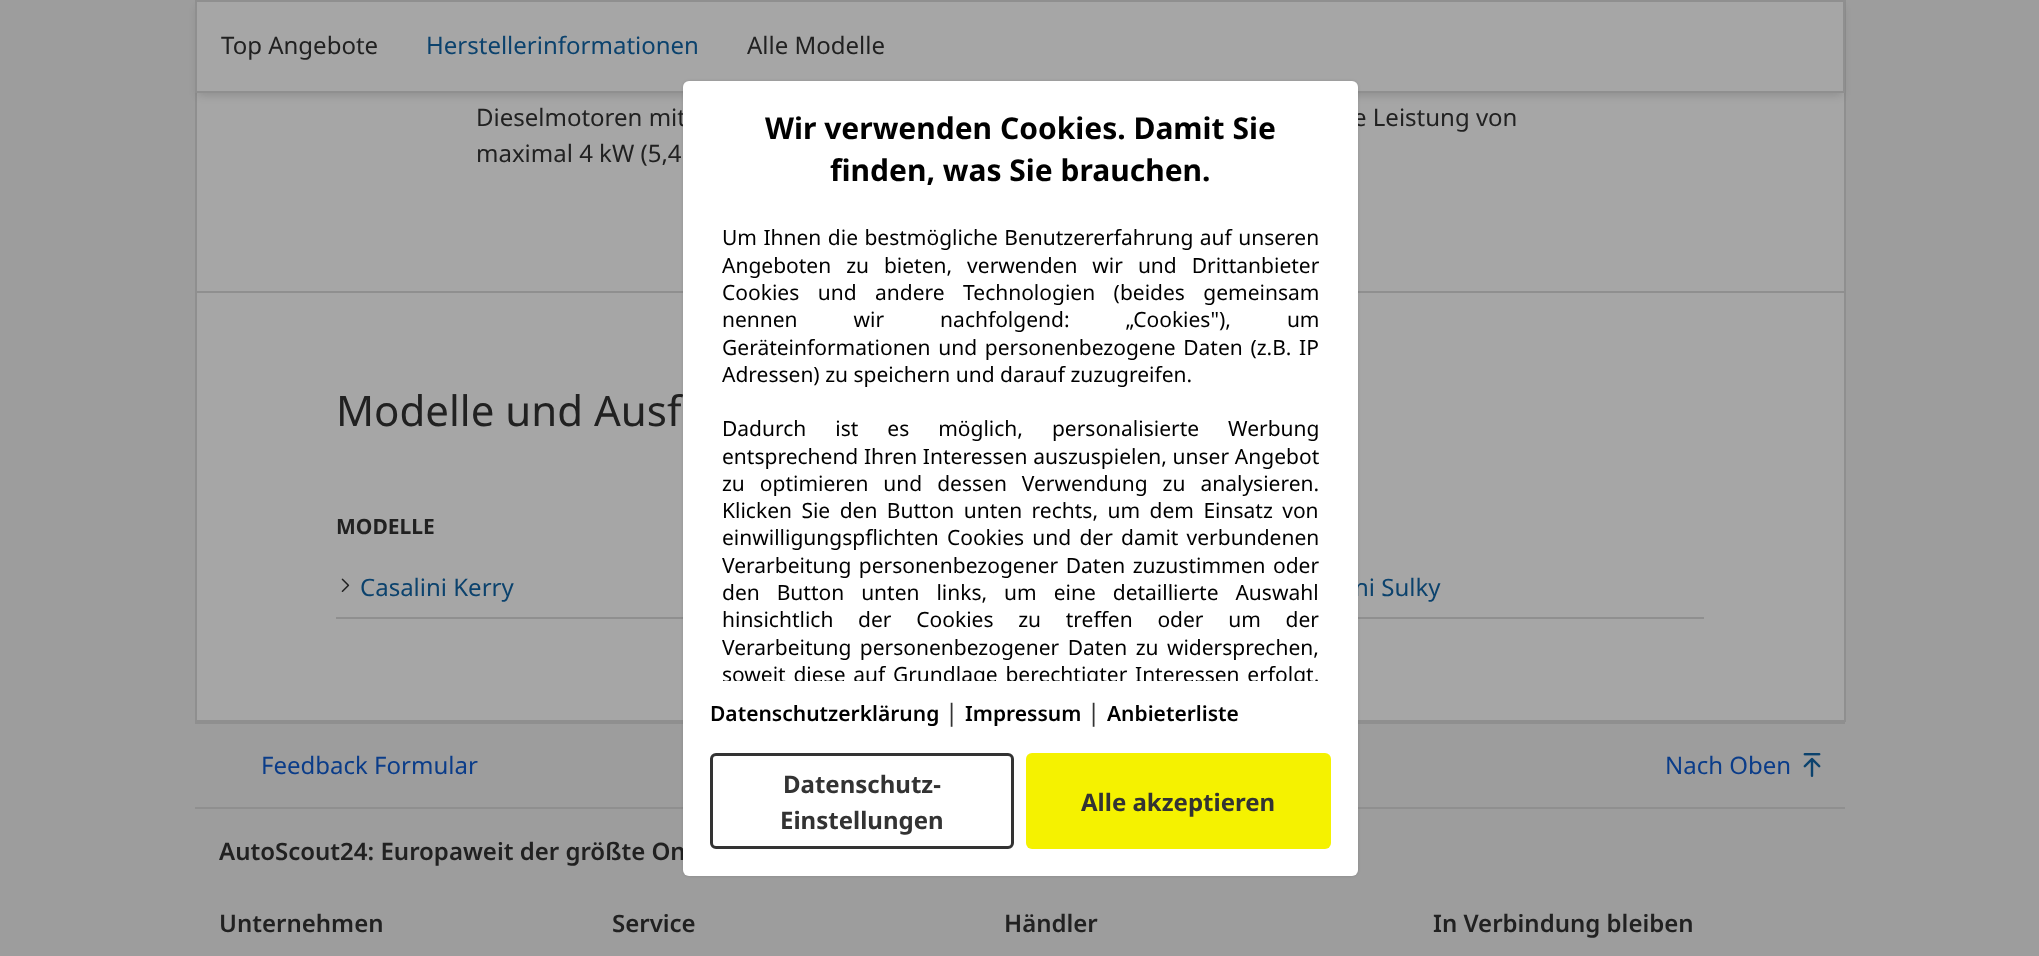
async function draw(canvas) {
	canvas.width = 2039;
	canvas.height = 956;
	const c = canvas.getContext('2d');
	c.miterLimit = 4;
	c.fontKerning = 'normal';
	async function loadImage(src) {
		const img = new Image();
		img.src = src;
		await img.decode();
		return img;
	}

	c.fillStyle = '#9d9d9d';
	c.fillRect(0, 0, 2039, 956);
	for (const [x, y, w, h, color] of [
		[197, 93, 1647, 198, '#a6a6a6'],
		[1844, 0, 2, 722, '#8f8f8f'],
		[195, 291, 1650, 2, '#8f8f8f'],
		[195, 93, 2, 200, '#8f8f8f'],
	]) {
		c.fillStyle = color;
		c.fillRect(x, y, w, h);
	}
	c.fillStyle = '#00000026';
	c.filter = 'blur(4.5px)';
	c.beginPath();
	c.rect(198, 8, 1644, 87);
	c.fill();
	c.filter = 'none';
	c.fillStyle = '#a6a6a6';
	c.beginPath();
	c.rect(196, 1, 1648, 91);
	c.fill();
	c.strokeStyle = '#8f8f8f';
	c.lineWidth = 2;
	c.stroke();
	c.font = '24px Noto Sans';
	c.fillStyle = '#212121';
	c.fillText('Top Angebote', 221, 54);
	c.fillStyle = '#0b426d';
	c.fillText('Herstellerinformationen', 426, 54);
	c.fillStyle = '#212121';
	for (const [text, x, y] of [
		['Alle Modelle', 747, 54],
		['Dieselmotoren mit', 476, 126],
		['e Leistung von', 1353, 126],
		['maximal 4 kW (5,4', 476, 162],
	]) {
		c.fillText(text, x, y);
	}
	for (const [x, y, w, h, color] of [
		[197, 293, 1647, 427, '#a6a6a6'],
		[195, 720, 1650, 4, '#8f8f8f'],
		[195, 293, 2, 429, '#8f8f8f'],
	]) {
		c.fillStyle = color;
		c.fillRect(x, y, w, h);
	}
	c.font = '42px Noto Sans';
	c.fillStyle = '#212121';
	c.fillText('Modelle und Ausf', 336, 426);
	c.font = 'bold 21px Noto Sans';
	c.fillText('MODELLE', 336, 534);
	c.fillStyle = '#8f8f8f';
	c.fillRect(336, 617, 347, 2);
	c.drawImage(await loadImage('img1.png'), 341, 578, 9, 14);
	c.font = '24px Noto Sans';
	c.fillStyle = '#0b426d';
	c.fillText('Casalini Kerry', 360, 596);
	c.fillStyle = '#8f8f8f';
	c.fillRect(1358, 617, 346, 2);
	c.fillStyle = '#0b426d';
	c.fillText('ni Sulky', 1354, 596);
	c.fillStyle = '#0a3c89';
	c.fillText('Feedback Formular', 261, 774);
	c.fillText('Nach Oben', 1665, 774);
	c.drawImage(await loadImage('img2.png'), 1803, 753, 18, 24);
	c.fillStyle = '#8f8f8f';
	c.fillRect(195, 807, 1650, 2);
	c.font = '600 24px Noto Sans';
	c.fillStyle = '#212121';
	for (const [text, x, y] of [
		['AutoScout24: Europaweit der größte On', 219, 860],
		['Unternehmen', 219, 932],
		['Service', 612, 932],
		['Händler', 1004, 932],
		['In Verbindung bleiben', 1433, 932],
	]) {
		c.fillText(text, x, y);
	}
	c.fillStyle = '#0000001f';
	c.filter = 'blur(1.5px)';
	c.beginPath();
	c.roundRect(683, 81, 675, 795, 6);
	c.fill();
	c.filter = 'none';
	c.fillStyle = '#fff';
	c.beginPath();
	c.roundRect(683, 81, 675, 795, 6);
	c.fill();
	c.font = 'bold 30px Noto Sans';
	c.fillStyle = '#000';
	c.fillText('Wir verwenden Cookies. Damit Sie', 765, 139);
	c.fillText('finden, was Sie brauchen.', 830, 181);
	c.wordSpacing = '1px';
	c.font = '21px Noto Sans';
	c.fillText('Um Ihnen die bestmögliche Benutzererfahrung auf unseren', 722, 245);
	c.wordSpacing = '9.5px';
	c.fillText('Angeboten zu bieten, verwenden wir und Drittanbieter', 722, 273);
	c.wordSpacing = '13px';
	c.fillText('Cookies und andere Technologien (beides gemeinsam', 722, 300);
	c.wordSpacing = '50.5px';
	c.fillText('nennen wir nachfolgend: „Cookies"), um', 722, 327);
	c.wordSpacing = '2.25px';
	c.fillText('Geräteinformationen und personenbezogene Daten (z.B. IP', 722, 355);
	c.wordSpacing = '0px';
	c.fillText('Adressen) zu speichern und darauf zuzugreifen.', 722, 382);
	c.wordSpacing = '23.5px';
	c.fillText('Dadurch ist es möglich, personalisierte Werbung', 722, 436);
	c.wordSpacing = '0.25px';
	c.fillText('entsprechend Ihren Interessen auszuspielen, unser Angebot', 722, 464);
	c.wordSpacing = '9.5px';
	c.fillText('zu optimieren und dessen Verwendung zu analysieren.', 722, 491);
	c.wordSpacing = '4px';
	c.fillText('Klicken Sie den Button unten rechts, um dem Einsatz von', 722, 518);
	c.wordSpacing = '2.75px';
	c.fillText('einwilligungspflichten Cookies und der damit verbundenen', 722, 545);
	c.wordSpacing = '2px';
	c.fillText('Verarbeitung personenbezogener Daten zuzustimmen oder', 722, 573);
	c.wordSpacing = '11.5px';
	c.fillText('den Button unten links, um eine detaillierte Auswahl', 722, 600);
	c.wordSpacing = '19.25px';
	c.fillText('hinsichtlich der Cookies zu treffen oder um der', 722, 627);
	c.wordSpacing = '3px';
	c.fillText('Verarbeitung personenbezogener Daten zu widersprechen,', 722, 655);
	c.save();
	c.beginPath();
	c.rect(710, 108, 621, 573);
	c.clip();
	c.wordSpacing = '2.25px';
	c.fillText('soweit diese auf Grundlage berechtigter Interessen erfolgt.', 722, 682);
	c.restore();
	c.wordSpacing = '0px';
	c.font = '600 21px Noto Sans';
	c.fillText('Datenschutzerklärung', 710, 721);
	c.font = '24px Noto Sans';
	c.fillStyle = '#333';
	c.fillText('|', 945, 721);
	c.font = '600 21px Noto Sans';
	c.fillStyle = '#000';
	c.fillText('Impressum', 965, 721);
	c.font = '24px Noto Sans';
	c.fillStyle = '#333';
	c.fillText('|', 1087, 721);
	c.font = '600 21px Noto Sans';
	c.fillStyle = '#000';
	c.fillText('Anbieterliste', 1107, 721);
	c.beginPath();
	c.roundRect(711.5, 754.5, 301, 93, 4.5);
	c.strokeStyle = '#333';
	c.lineWidth = 3;
	c.stroke();
	c.font = 'bold 24px Noto Sans';
	c.fillStyle = '#333';
	c.fillText('Datenschutz-', 783, 793);
	c.fillText('Einstellungen', 780, 829);
	c.fillStyle = '#f5f200';
	c.beginPath();
	c.roundRect(1026, 753, 305, 96, 6);
	c.fill();
	c.fillStyle = '#333';
	c.fillText('Alle akzeptieren', 1081, 811);
}

draw(document.querySelector('canvas'));
